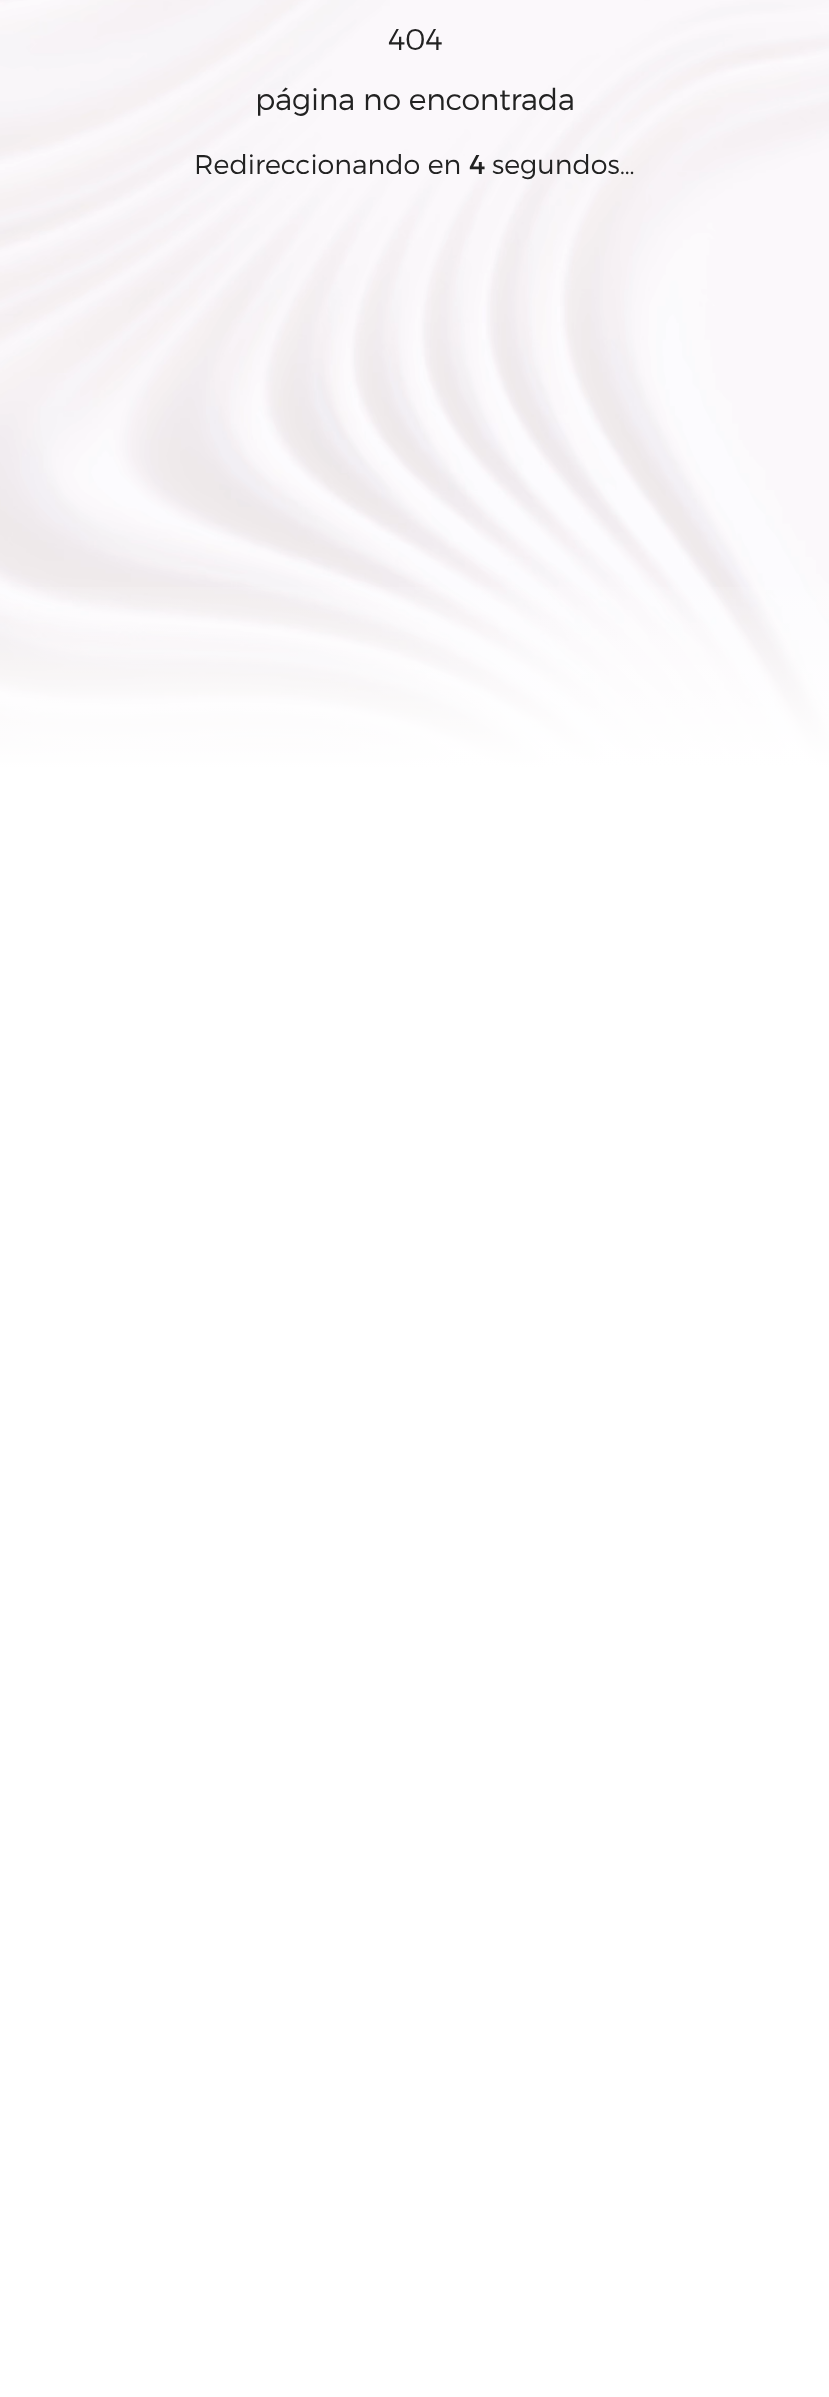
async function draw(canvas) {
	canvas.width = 829;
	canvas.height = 2397;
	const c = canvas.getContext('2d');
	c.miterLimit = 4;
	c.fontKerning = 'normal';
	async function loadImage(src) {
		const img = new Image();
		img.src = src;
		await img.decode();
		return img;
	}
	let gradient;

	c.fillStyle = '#fff';
	c.fillRect(0, 0, 829, 2397);
	c.drawImage(await loadImage('img1.png'), 0, 0, 829, 767);
	c.letterSpacing = '-0.25px';
	c.font = '300 30px Montserrat';
	c.fillStyle = '#222';
	c.fillText('404', 388, 50);
	c.fillText('página no encontrada', 255, 110);
	c.letterSpacing = '0px';
	c.font = '300 27px Montserrat';
	c.fillText('Redireccionando en', 194, 174);
	c.font = '27px Montserrat';
	c.fillText('4', 469, 174);
	c.font = '300 27px Montserrat';
	c.fillText('segundos…', 492, 174);
	gradient = c.createLinearGradient(415, -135, 415, 806);
	gradient.addColorStop(0.74, '#ffffff00');
	gradient.addColorStop(0.96, '#fff');
	c.fillStyle = gradient;
	c.fillRect(0, 587, 829, 180);
}

draw(document.querySelector('canvas'));
